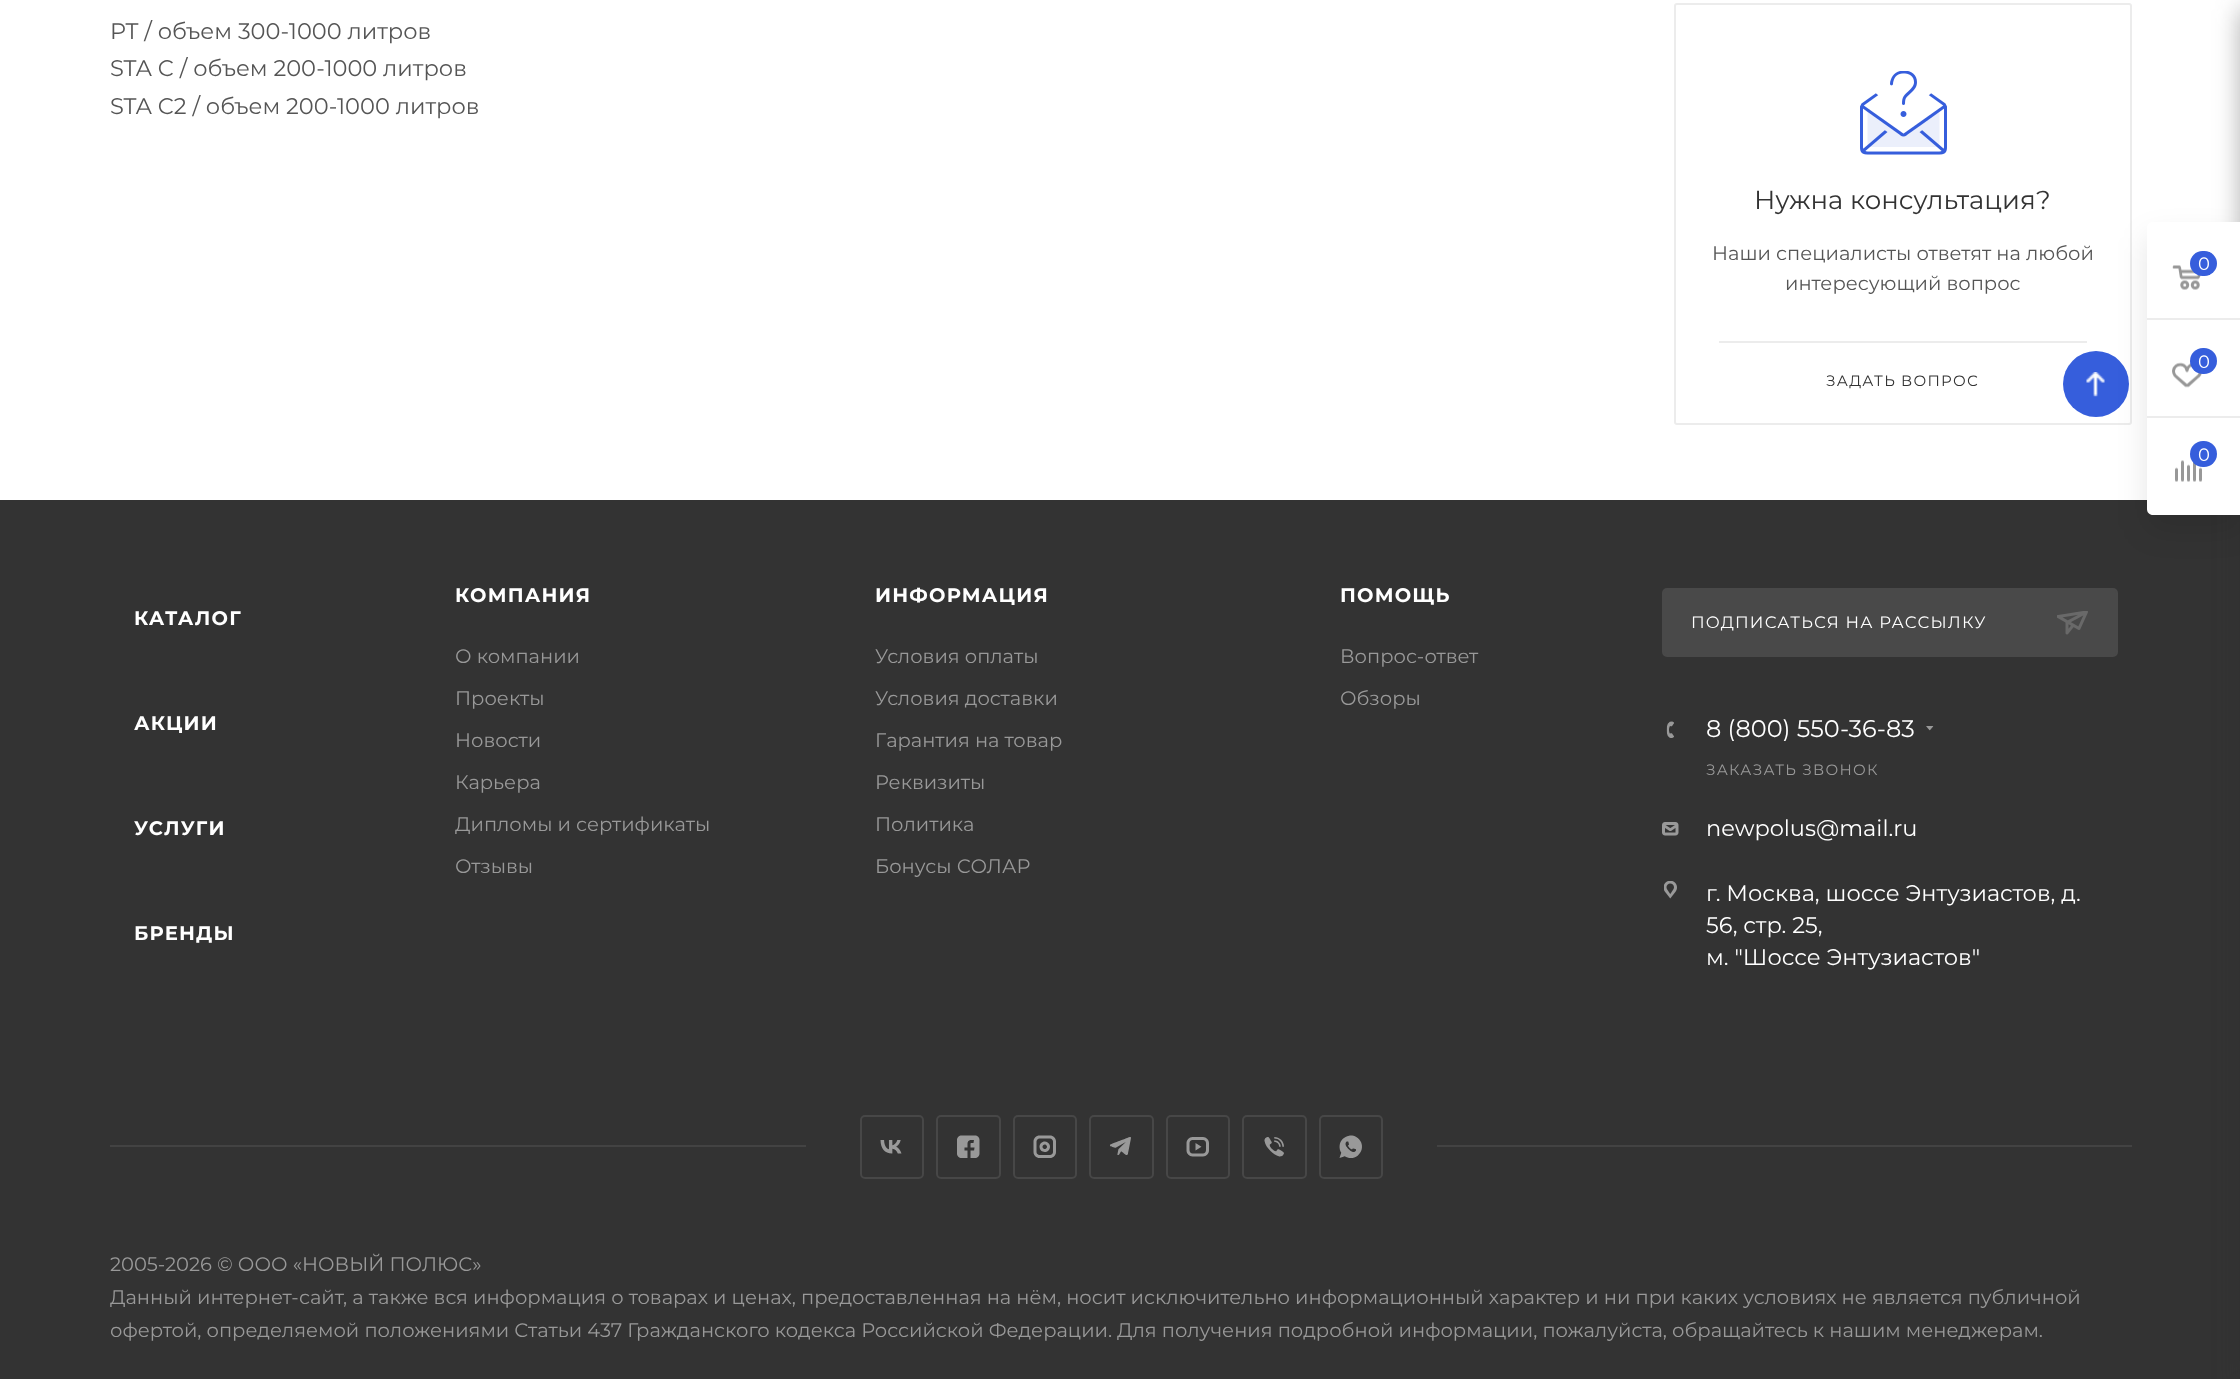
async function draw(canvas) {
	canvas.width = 2240;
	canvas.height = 1379;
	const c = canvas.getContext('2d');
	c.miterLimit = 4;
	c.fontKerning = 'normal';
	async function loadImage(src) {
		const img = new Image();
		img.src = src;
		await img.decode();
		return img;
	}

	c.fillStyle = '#fff';
	c.fillRect(0, 0, 2240, 1379);
	c.font = '22.5px Montserrat';
	c.fillStyle = '#555';
	for (const [text, x, y] of [
		['PT / объем 300-1000 литров', 110, 39],
		['STA C / объем 200-1000 литров', 110, 76],
		['STA C2 / объем 200-1000 литров', 110, 114],
	]) {
		c.fillText(text, x, y);
	}
	c.beginPath();
	c.roundRect(1675, 4, 456, 420, 2);
	c.strokeStyle = '#ececec';
	c.lineWidth = 2;
	c.stroke();
	c.drawImage(await loadImage('img1.png'), 1860, 71, 87, 84);
	c.font = '26px Montserrat';
	c.fillStyle = '#333';
	c.fillText('Нужна консультация?', 1754, 209);
	c.font = '19.5px Montserrat';
	c.fillStyle = '#555';
	c.fillText('Наши специалисты ответят на любой', 1712, 260);
	c.fillText('интересующий вопрос', 1785, 290);
	c.fillStyle = '#ececec';
	c.fillRect(1719, 341, 368, 2);
	c.letterSpacing = '1.2px';
	c.font = '15px Montserrat';
	c.fillStyle = '#333';
	c.fillText('ЗАДАТЬ ВОПРОС', 1826, 386);
	c.fillStyle = '#365edc';
	c.beginPath();
	c.arc(2096, 384, 33, 0, 2 * Math.PI);
	c.fill();
	c.drawImage(await loadImage('img2.png'), 2086, 372, 19, 25);
	c.fillStyle = '#333';
	c.fillRect(0, 500, 2240, 879);
	c.fillStyle = '#2c2c2c66';
	c.filter = 'blur(13.5px)';
	c.beginPath();
	c.roundRect(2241, 9, 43, 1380, 3);
	c.fill();
	c.filter = 'none';
	c.fillStyle = '#0000001a';
	c.filter = 'blur(15px)';
	c.beginPath();
	c.roundRect(2147, 237, 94, 293, 6);
	c.fill();
	c.filter = 'none';
	c.fillStyle = '#fff';
	c.beginPath();
	c.moveTo(2153, 222);
	c.lineTo(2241, 222);
	c.lineTo(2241, 515);
	c.lineTo(2153, 515);
	c.bezierCurveTo(2149.5, 515, 2147, 512.5, 2147, 509);
	c.lineTo(2147, 228);
	c.bezierCurveTo(2147, 224.5, 2149.5, 222, 2153, 222);
	c.closePath();
	c.fill();
	c.fillStyle = '#ececec';
	c.fillRect(2147, 318, 93, 2);
	c.drawImage(await loadImage('img3.png'), 2172, 265, 29, 25);
	c.fillStyle = '#365edc';
	c.beginPath();
	c.roundRect(2190, 251, 27, 25, 12.5);
	c.fill();
	c.letterSpacing = '0px';
	c.font = '18px Montserrat';
	c.fillStyle = '#fff';
	c.fillText('0', 2198, 270);
	c.fillStyle = '#365edc';
	c.fillRect(2209, 252, 1, 23);
	c.fillStyle = '#ececec';
	c.fillRect(2147, 416, 93, 2);
	c.drawImage(await loadImage('img4.png'), 2172, 362, 30, 26);
	c.fillStyle = '#365edc';
	c.beginPath();
	c.roundRect(2190, 348, 27, 26, 13);
	c.fill();
	c.fillStyle = '#fff';
	c.fillText('0', 2198, 368);
	c.drawImage(await loadImage('img5.png'), 2175, 460, 27, 22);
	c.fillStyle = '#365edc';
	c.beginPath();
	c.roundRect(2190, 441, 27, 26, 13);
	c.fill();
	c.fillStyle = '#fff';
	c.fillText('0', 2198, 461);
	c.letterSpacing = '1.2px';
	c.font = 'bold 19.51px Montserrat';
	for (const [text, x, y] of [
		['КАТАЛОГ', 134, 625],
		['АКЦИИ', 134, 730],
		['УСЛУГИ', 134, 835],
		['БРЕНДЫ', 134, 940],
		['КОМПАНИЯ', 455, 602],
	]) {
		c.fillText(text, x, y);
	}
	c.letterSpacing = '0px';
	c.font = '19.51px Montserrat';
	c.fillStyle = '#999';
	for (const [text, x, y] of [
		['О компании', 455, 663],
		['Проекты', 455, 705],
		['Новости', 455, 747],
		['Карьера', 455, 789],
		['Дипломы и сертификаты', 455, 831],
		['Отзывы', 455, 873],
	]) {
		c.fillText(text, x, y);
	}
	c.letterSpacing = '1.2px';
	c.font = 'bold 19.51px Montserrat';
	c.fillStyle = '#fff';
	c.fillText('ИНФОРМАЦИЯ', 875, 602);
	c.letterSpacing = '0px';
	c.font = '19.51px Montserrat';
	c.fillStyle = '#999';
	for (const [text, x, y] of [
		['Условия оплаты', 875, 663],
		['Условия доставки', 875, 705],
		['Гарантия на товар', 875, 747],
		['Реквизиты', 875, 789],
		['Политика', 875, 831],
		['Бонусы СОЛАР', 875, 873],
	]) {
		c.fillText(text, x, y);
	}
	c.letterSpacing = '1.2px';
	c.font = 'bold 19.51px Montserrat';
	c.fillStyle = '#fff';
	c.fillText('ПОМОЩЬ', 1340, 602);
	c.letterSpacing = '0px';
	c.font = '19.51px Montserrat';
	c.fillStyle = '#999';
	c.fillText('Вопрос-ответ', 1340, 663);
	c.fillText('Обзоры', 1340, 705);
	c.fillStyle = '#494949';
	c.beginPath();
	c.roundRect(1663, 589, 454, 67, 4);
	c.fill();
	c.strokeStyle = '#494949';
	c.stroke();
	c.letterSpacing = '1.2px';
	c.font = '16.5px Montserrat';
	c.fillStyle = '#fff';
	c.fillText('ПОДПИСАТЬСЯ НА РАССЫЛКУ', 1691, 628);
	c.drawImage(await loadImage('img6.png'), 2057, 611, 31, 24);
	c.drawImage(await loadImage('img7.png'), 1666, 721, 8, 17);
	c.save();
	c.beginPath();
	c.rect(1662, 717, 272, 24);
	c.clip();
	c.letterSpacing = '0px';
	c.font = '24px Montserrat';
	c.fillText('8 (800) 550-36-83', 1706, 737);
	c.restore();
	c.drawImage(await loadImage('img8.png'), 1926, 726, 8, 5);
	c.font = '15px Montserrat';
	c.fillStyle = '#999';
	c.fillText('ЗАКАЗАТЬ ЗВОНОК', 1706, 775);
	c.drawImage(await loadImage('img9.png'), 1662, 822, 17, 14);
	c.letterSpacing = '0px';
	c.font = '22.5px Montserrat';
	c.fillStyle = '#fff';
	c.fillText('newpolus@mail.ru', 1706, 836);
	c.drawImage(await loadImage('img10.png'), 1664, 881, 13, 18);
	for (const [text, x, y] of [
		['г. Москва, шоссе Энтузиастов, д.', 1706, 901],
		['56, стр. 25,', 1706, 933],
		['м. "Шоссе Энтузиастов"', 1706, 965],
	]) {
		c.fillText(text, x, y);
	}
	c.fillStyle = '#434343';
	c.fillRect(110, 1145, 2022, 2);
	c.fillStyle = '#333';
	c.fillRect(806, 1145, 631, 2);
	c.drawImage(await loadImage('img11.png'), 880, 1140, 22, 14);
	c.beginPath();
	c.roundRect(861, 1116, 62, 62, 4);
	c.strokeStyle = '#474747';
	c.stroke();
	c.drawImage(await loadImage('img12.png'), 957, 1135, 23, 23);
	c.beginPath();
	c.roundRect(937, 1116, 63, 62, 4);
	c.stroke();
	c.drawImage(await loadImage('img13.png'), 1033, 1135, 23, 23);
	c.beginPath();
	c.roundRect(1014, 1116, 62, 62, 4);
	c.stroke();
	c.drawImage(await loadImage('img14.png'), 1110, 1137, 21, 18);
	c.beginPath();
	c.roundRect(1090, 1116, 63, 62, 4);
	c.stroke();
	c.drawImage(await loadImage('img15.png'), 1186, 1137, 23, 20);
	c.beginPath();
	c.roundRect(1167, 1116, 62, 62, 4);
	c.stroke();
	c.drawImage(await loadImage('img16.png'), 1264, 1137, 20, 20);
	c.beginPath();
	c.roundRect(1243, 1116, 63, 62, 4);
	c.stroke();
	c.drawImage(await loadImage('img17.png'), 1339, 1135, 23, 23);
	c.beginPath();
	c.roundRect(1320, 1116, 62, 62, 4);
	c.stroke();
	c.font = '19.51px Montserrat';
	c.fillStyle = '#999';
	for (const [text, x, y] of [
		['2005-2026 © ООО «НОВЫЙ ПОЛЮС»', 110, 1271],
		['Данный интернет-сайт, а также вся информация о товарах и ценах, предоставленная на нём, носит исключительно информационный характер и ни при каких условиях не является публичной', 110, 1304],
		['офертой, определяемой положениями Статьи 437 Гражданского кодекса Российской Федерации.', 110, 1337],
		['Для получения подробной информации, пожалуйста, обращайтесь к нашим менеджерам.', 1117, 1337],
	]) {
		c.fillText(text, x, y);
	}
}

draw(document.querySelector('canvas'));
